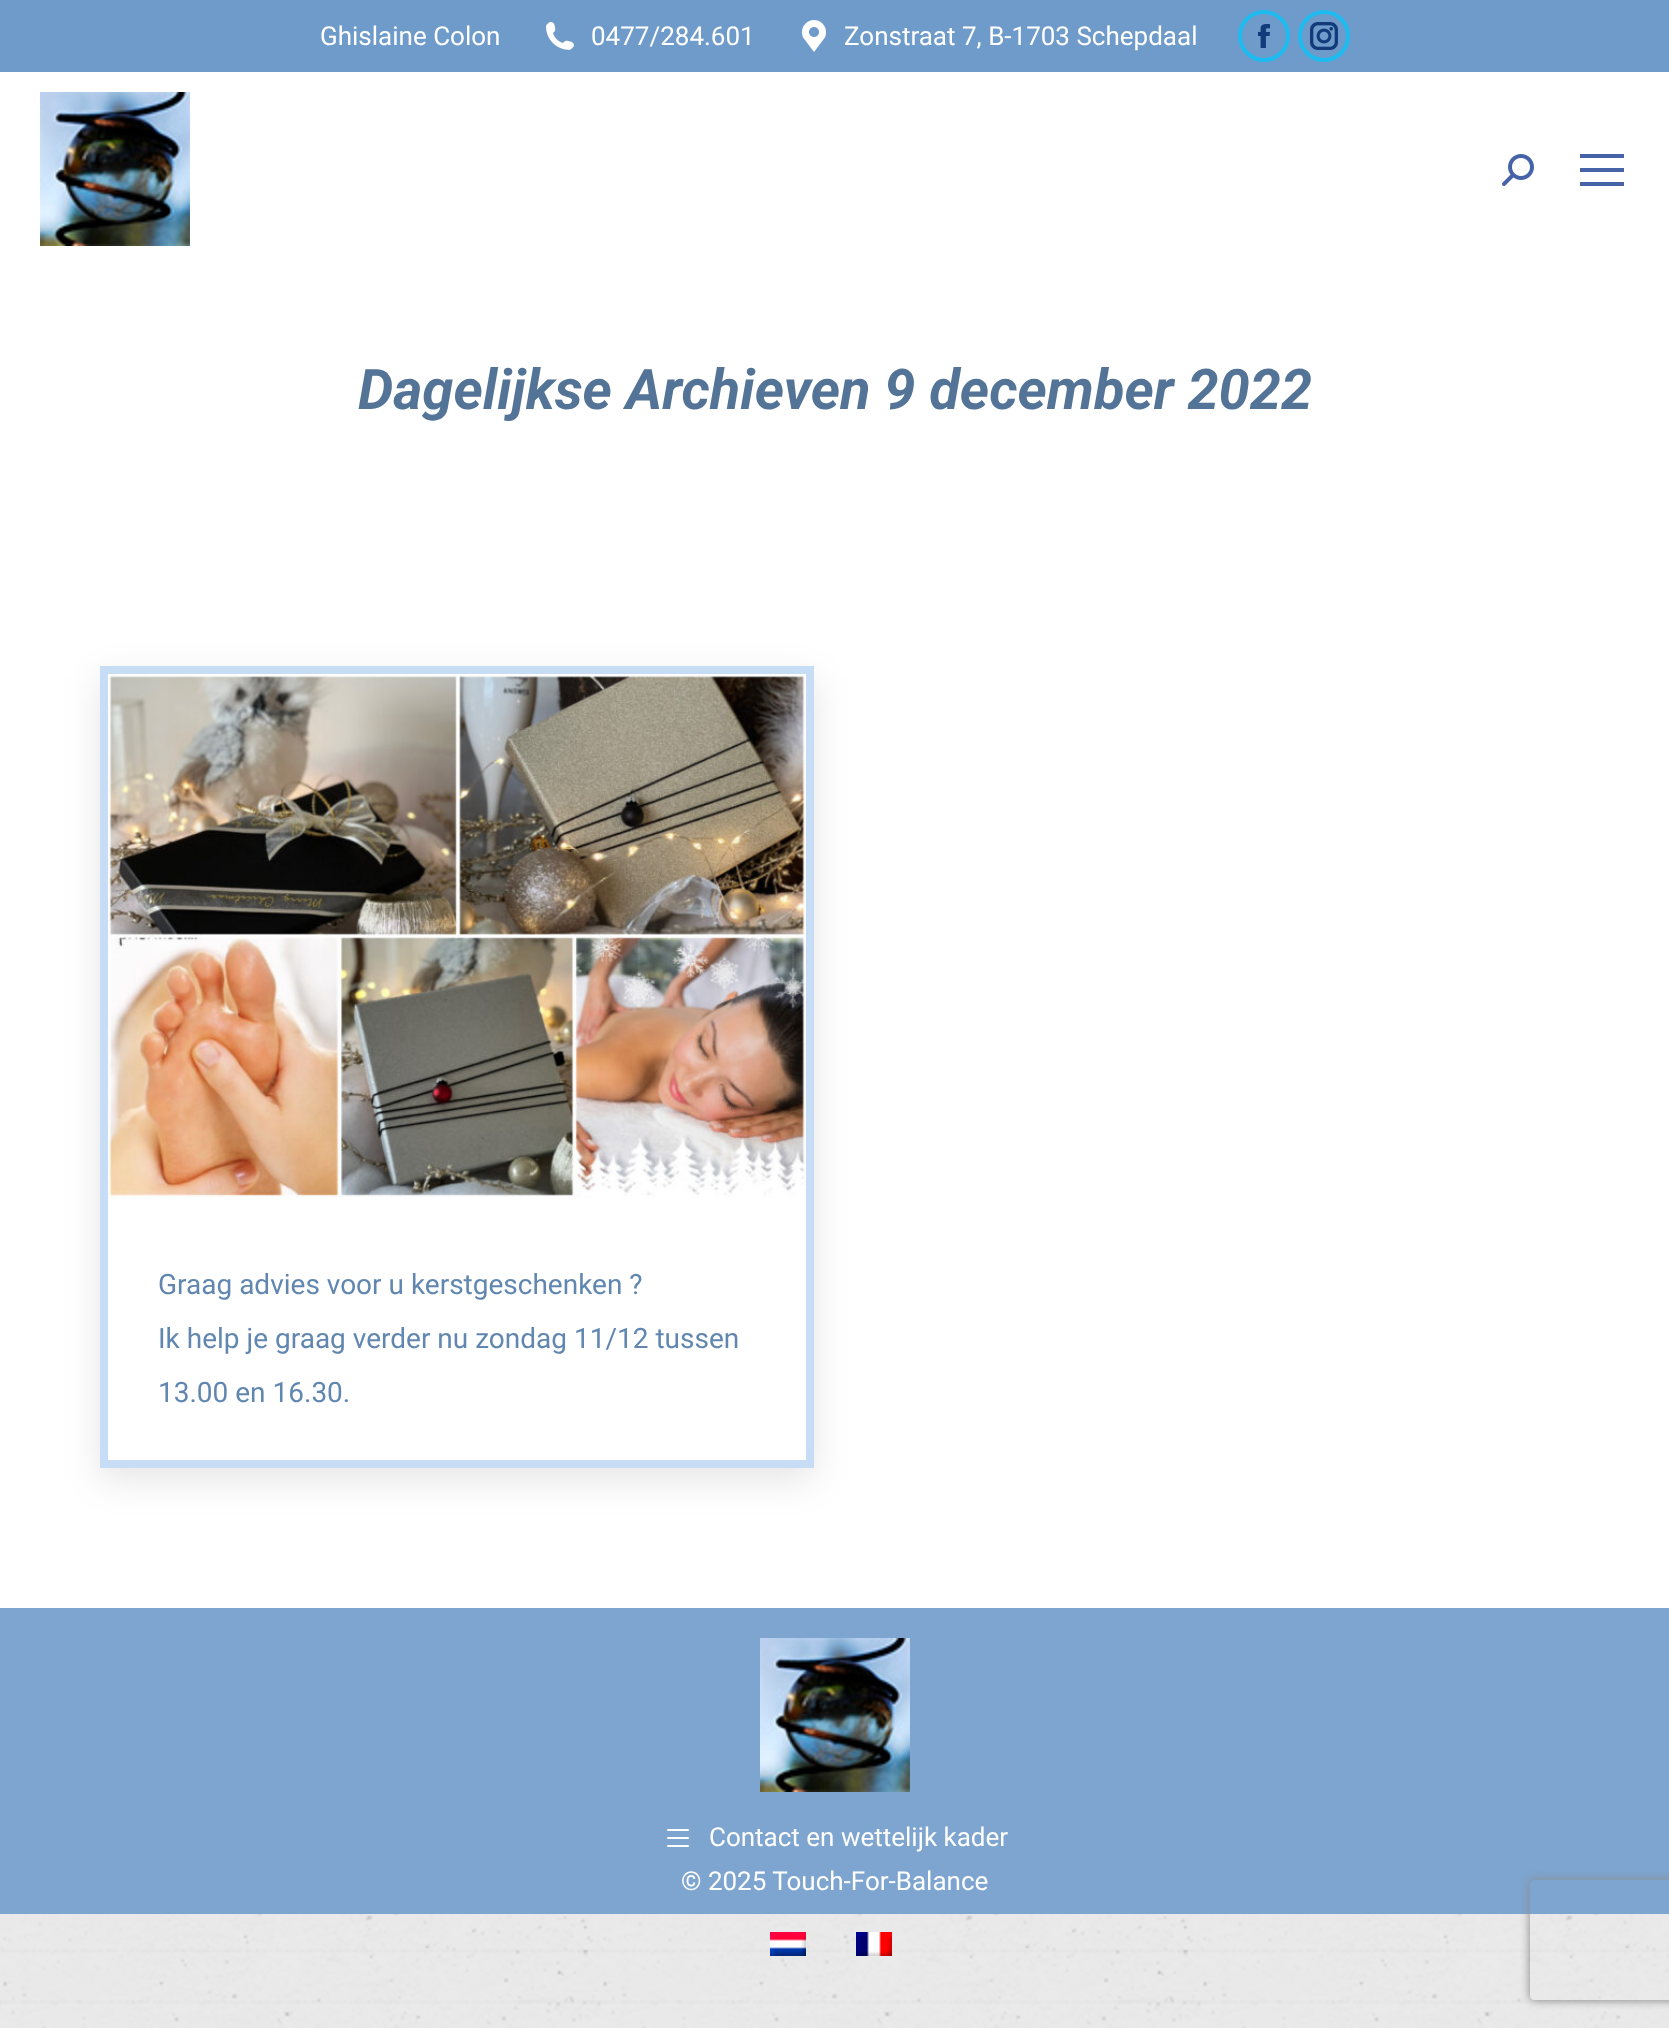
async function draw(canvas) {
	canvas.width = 1669;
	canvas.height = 2028;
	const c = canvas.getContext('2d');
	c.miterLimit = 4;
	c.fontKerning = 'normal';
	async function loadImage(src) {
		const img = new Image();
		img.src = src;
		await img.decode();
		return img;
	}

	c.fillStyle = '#fff';
	c.fillRect(0, 0, 1669, 2028);
	c.drawImage(await loadImage('img1.png'), 0, 1914, 1669, 114);
	c.fillStyle = '#6f9bca';
	c.fillRect(0, 0, 1669, 72);
	c.font = '26px Roboto';
	c.fillStyle = '#fff';
	c.fillText('Ghislaine Colon', 320, 45);
	c.drawImage(await loadImage('img2.png'), 546, 22, 28, 28);
	c.fillText('0477/284.601', 591, 45);
	c.drawImage(await loadImage('img3.png'), 802, 20, 24, 32);
	c.fillText('Zonstraat 7, B-1703 Schepdaal', 844, 45);
	c.beginPath();
	c.arc(1264, 36, 24, 0, 2 * Math.PI);
	c.strokeStyle = '#1ebbf0';
	c.lineWidth = 4;
	c.stroke();
	c.drawImage(await loadImage('img4.png'), 1258, 24, 12, 24);
	c.beginPath();
	c.arc(1324, 36, 24, 0, 2 * Math.PI);
	c.stroke();
	c.drawImage(await loadImage('img5.png'), 1310, 22, 28, 28);
	c.drawImage(await loadImage('img6.png'), 40, 92, 150, 154);
	c.drawImage(await loadImage('img7.png'), 1502, 154, 32, 32);
	for (const [x, y, w, h, color] of [
		[1580, 154, 44, 4, '#4663a7'],
		[1580, 168, 44, 4, '#4663a7'],
		[1580, 182, 44, 4, '#4663a7'],
	]) {
		c.fillStyle = color;
		c.fillRect(x, y, w, h);
	}
	c.font = 'italic bold 56px Roboto';
	c.fillStyle = '#537497';
	c.fillText('Dagelijkse Archieven 9 december 2022', 358, 409);
	c.save();
	c.beginPath();
	c.moveTo(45, 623);
	c.lineTo(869, 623);
	c.lineTo(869, 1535);
	c.lineTo(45, 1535);
	c.closePath();
	c.moveTo(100, 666);
	c.lineTo(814, 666);
	c.lineTo(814, 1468);
	c.lineTo(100, 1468);
	c.closePath();
	c.clip('evenodd');
	c.fillStyle = '#0000001a';
	c.filter = 'blur(18px)';
	c.beginPath();
	c.rect(100, 678, 714, 802);
	c.fill();
	c.filter = 'none';
	c.restore();
	c.strokeStyle = '#c7ddf6';
	c.lineWidth = 8;
	c.strokeRect(104, 670, 706, 794);
	c.drawImage(await loadImage('img8.png'), 108, 674, 697, 524);
	c.font = '28px Roboto';
	c.fillStyle = '#6187b0';
	for (const [text, x, y] of [
		['Graag advies voor u kerstgeschenken ?', 158, 1294],
		['Ik help je graag verder nu zondag 11/12 tussen', 158, 1348],
		['13.00 en 16.30.', 158, 1402],
	]) {
		c.fillText(text, x, y);
	}
	c.fillStyle = '#6f9bca';
	c.fillRect(0, 1608, 1669, 306);
	c.save();
	c.beginPath();
	c.moveTo(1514, 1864);
	c.lineTo(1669, 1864);
	c.lineTo(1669, 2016);
	c.lineTo(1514, 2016);
	c.closePath();
	c.moveTo(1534, 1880);
	c.lineTo(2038, 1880);
	c.bezierCurveTo(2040, 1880, 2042, 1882, 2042, 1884);
	c.lineTo(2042, 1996);
	c.bezierCurveTo(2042, 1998, 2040, 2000, 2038, 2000);
	c.lineTo(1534, 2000);
	c.bezierCurveTo(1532, 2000, 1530, 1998, 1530, 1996);
	c.lineTo(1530, 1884);
	c.bezierCurveTo(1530, 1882, 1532, 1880, 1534, 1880);
	c.closePath();
	c.clip('evenodd');
	c.fillStyle = '#808080';
	c.filter = 'blur(5px)';
	c.beginPath();
	c.roundRect(1530, 1880, 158, 120, 4);
	c.fill();
	c.filter = 'none';
	c.restore();
	c.fillStyle = '#ffffff1a';
	c.fillRect(0, 1608, 1669, 306);
	c.drawImage(await loadImage('img6.png'), 760, 1638, 150, 154);
	c.drawImage(await loadImage('img9.png'), 667, 1829, 22, 18);
	c.font = '26px Roboto';
	c.fillStyle = '#fff';
	c.fillText('Contact en wettelijk kader', 709, 1846);
	c.fillText('© 2025 Touch-For-Balance', 681, 1890);
	c.drawImage(await loadImage('img10.png'), 770, 1932, 36, 24);
	c.drawImage(await loadImage('img11.png'), 856, 1932, 36, 24);
}

draw(document.querySelector('canvas'));
